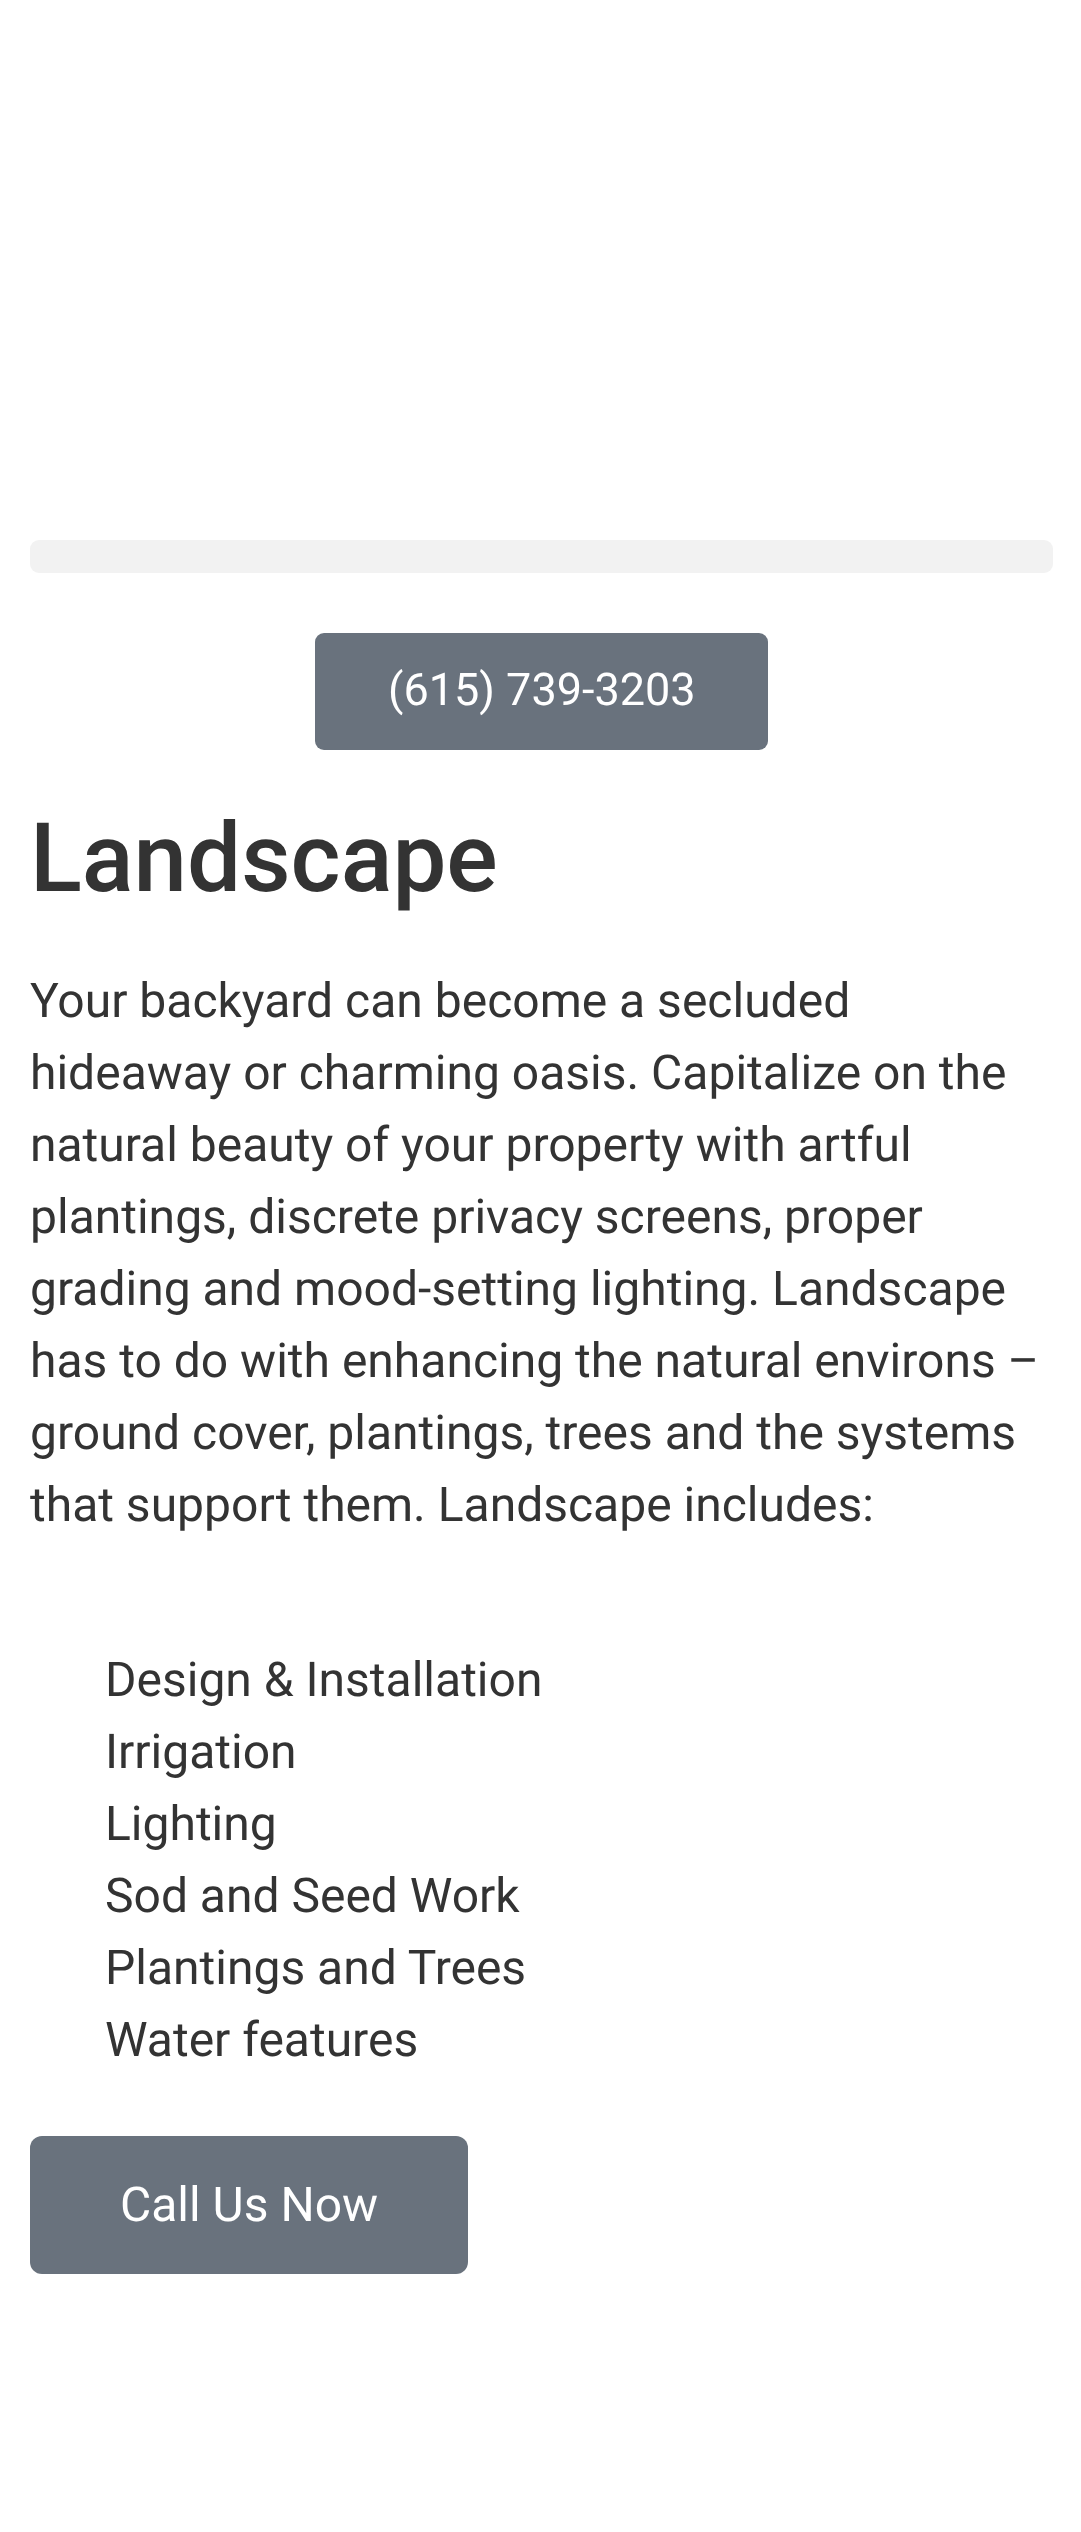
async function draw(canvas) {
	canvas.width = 1081;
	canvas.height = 2532;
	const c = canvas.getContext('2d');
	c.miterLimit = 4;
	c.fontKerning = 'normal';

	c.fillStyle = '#fff';
	c.fillRect(0, 0, 1081, 2532);
	c.fillStyle = '#f2f2f2';
	c.beginPath();
	c.roundRect(30, 540, 1023, 33, 9);
	c.fill();
	c.fillStyle = '#69727d';
	c.beginPath();
	c.roundRect(315, 633, 453, 117, 9);
	c.fill();
	c.font = '45px Roboto';
	c.fillStyle = '#fff';
	c.fillText('(615) 739-3203', 388, 705);
	c.font = '500 96px Roboto';
	c.fillStyle = '#333';
	c.fillText('Landscape', 30, 891);
	c.font = '48px Roboto';
	for (const [text, x, y] of [
		['Your backyard can become a secluded', 30, 1017],
		['hideaway or charming oasis. Capitalize on the', 30, 1089],
		['natural beauty of your property with artful', 30, 1161],
		['plantings, discrete privacy screens, proper', 30, 1233],
		['grading and mood-setting lighting. Landscape', 30, 1305],
		['has to do with enhancing the natural environs –', 30, 1377],
		['ground cover, plantings, trees and the systems', 30, 1449],
		['that support them. Landscape includes:', 30, 1521],
		['Design & Installation', 105, 1696],
		['Irrigation', 105, 1768],
		['Lighting', 105, 1840],
		['Sod and Seed Work', 105, 1912],
		['Plantings and Trees', 105, 1984],
		['Water features', 105, 2056],
	]) {
		c.fillText(text, x, y);
	}
	c.fillStyle = '#69727d';
	c.beginPath();
	c.roundRect(30, 2136, 438, 138, 12);
	c.fill();
	c.fillStyle = '#fff';
	c.fillText('Call Us Now', 120, 2221);
}

draw(document.querySelector('canvas'));
